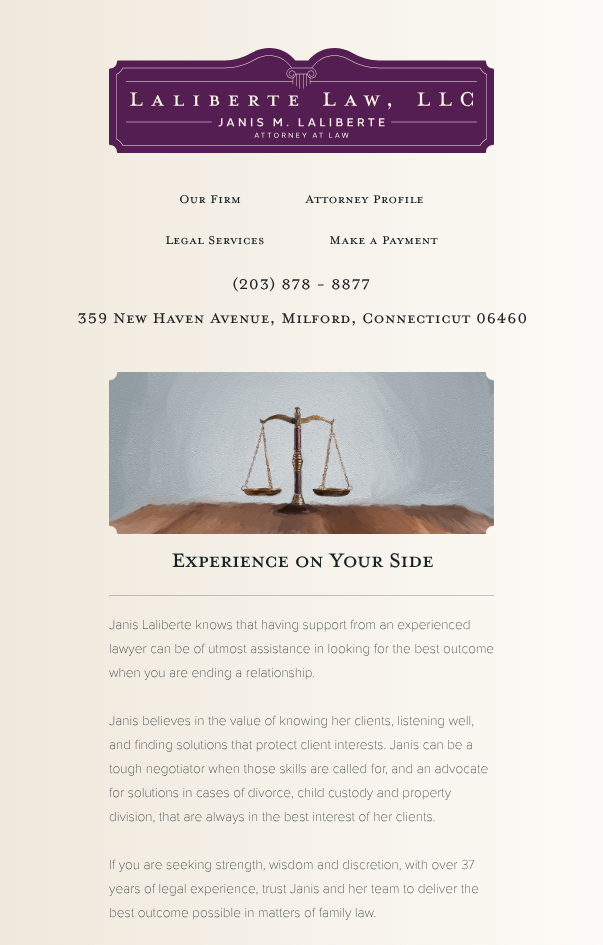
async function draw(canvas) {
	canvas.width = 603;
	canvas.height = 945;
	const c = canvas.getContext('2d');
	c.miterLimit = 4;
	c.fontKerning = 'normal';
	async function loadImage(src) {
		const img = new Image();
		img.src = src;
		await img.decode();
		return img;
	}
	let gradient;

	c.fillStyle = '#fff';
	c.fillRect(0, 0, 603, 945);
	gradient = c.createLinearGradient(0, 782, 603, 782);
	gradient.addColorStop(0, '#efe8dc');
	gradient.addColorStop(1, '#fdfbf7');
	c.fillStyle = gradient;
	c.fillRect(0, 0, 603, 945);
	gradient = c.createLinearGradient(0, 782, 603, 782);
	gradient.addColorStop(0, '#bcb7af');
	gradient.addColorStop(1, '#c6c6c4');
	c.fillStyle = gradient;
	c.fillRect(109, 595, 385, 1);
	c.drawImage(await loadImage('img1.png'), 109, 48, 385, 105);
	c.font = '18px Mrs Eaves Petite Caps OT';
	c.fillStyle = '#162428';
	for (const [text, x, y] of [
		['Our Firm', 179, 203],
		['Attorney Profile', 305, 203],
		['Legal Services', 165, 244],
		['Make a Payment', 329, 244],
	]) {
		c.fillText(text, x, y);
	}
	c.font = '22.25px Mrs Eaves Petite Caps OT';
	c.fillStyle = '#212529';
	c.fillText('(203) 878 - 8877', 232, 289);
	c.fillText('359 New Haven Avenue, Milford, Connecticut 06460', 77, 323);
	c.drawImage(await loadImage('img2.png'), 109, 372, 385, 162);
	c.letterSpacing = '-1.1px';
	c.font = '31px Mrs Eaves Petite Caps OT';
	c.fillStyle = '#162428';
	c.fillText('Experience on Your Side', 171, 567);
	c.letterSpacing = '0px';
	c.font = '100 13.6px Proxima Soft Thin';
	for (const [text, x, y] of [
		['Janis Laliberte knows that having support from an experienced', 109, 629],
		['lawyer can be of utmost assistance in looking for the best outcome', 109, 653],
		['when you are ending a relationship.', 109, 677],
		['Janis believes in the value of knowing her clients, listening well,', 109, 725],
		['and finding solutions that protect client interests. Janis can be a', 109, 749],
		['tough negotiator when those skills are called for, and an advocate', 109, 773],
		['for solutions in cases of divorce, child custody and property', 109, 797],
		['division, that are always in the best interest of her clients.', 109, 821],
		['If you are seeking strength, wisdom and discretion, with over 37', 109, 869],
		['years of legal experience, trust Janis and her team to deliver the', 109, 893],
		['best outcome possible in matters of family law.', 109, 917],
	]) {
		c.fillText(text, x, y);
	}
}

draw(document.querySelector('canvas'));
